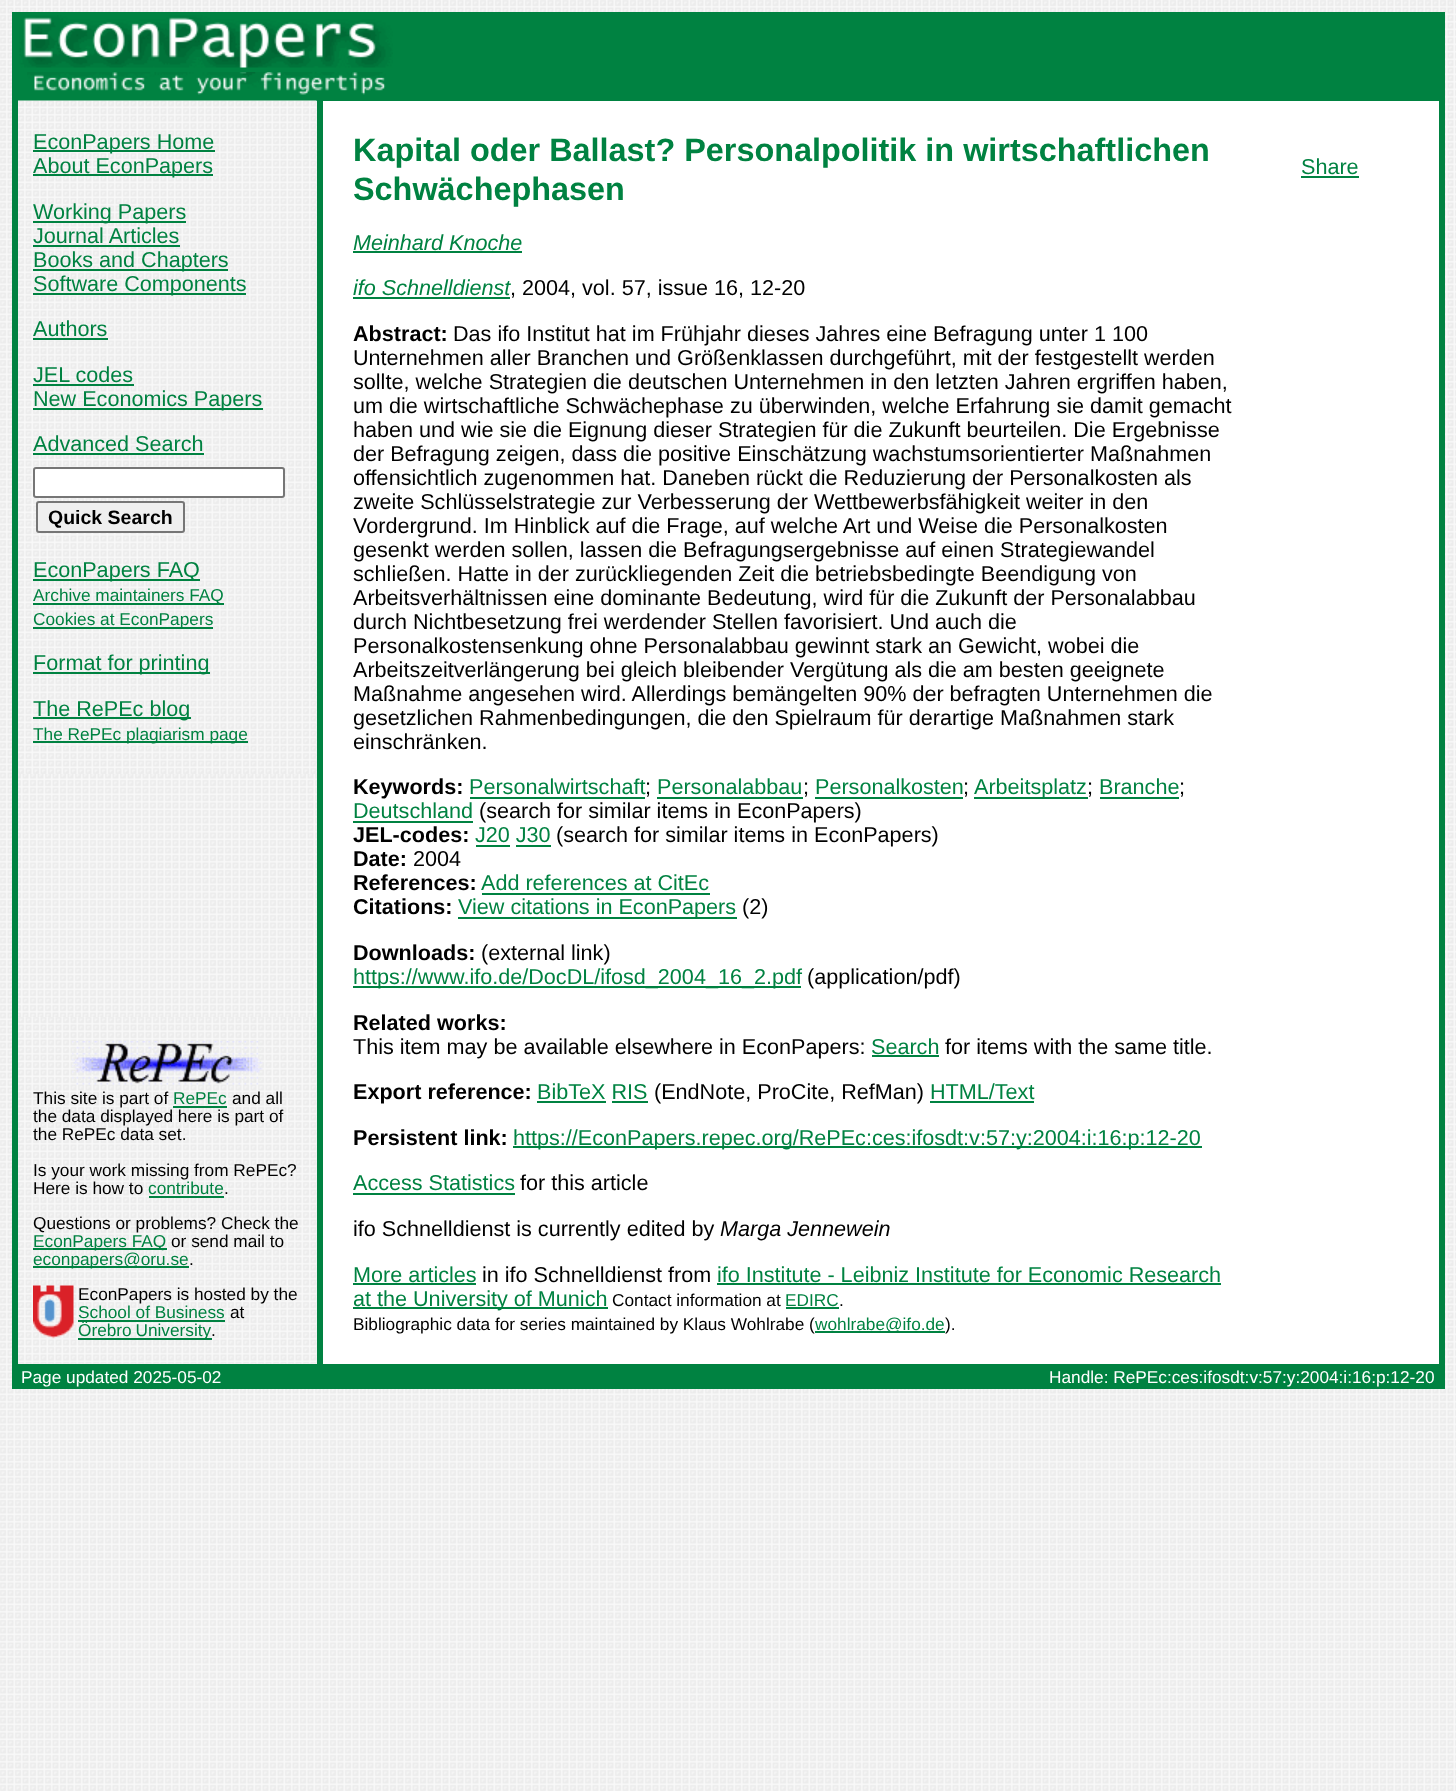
async function draw(canvas) {
	canvas.width = 1456;
	canvas.height = 1791;
	const c = canvas.getContext('2d');
	c.miterLimit = 4;
	c.fontKerning = 'normal';
	async function loadImage(src) {
		const img = new Image();
		img.src = src;
		await img.decode();
		return img;
	}

	c.fillStyle = '#fff';
	c.fillRect(0, 0, 1456, 1791);
	c.drawImage(await loadImage('img1.png'), 0, 0, 1456, 1791);
	c.fillStyle = '#008241';
	c.fillRect(12, 12, 6, 1377);
	c.fillRect(18, 12, 1421, 60);
	c.drawImage(await loadImage('img2.png'), 19, 15, 374, 53);
	c.fillRect(1439, 12, 6, 1377);
	c.fillRect(18, 72, 1421, 29);
	c.drawImage(await loadImage('img3.png'), 27, 72, 359, 23);
	c.drawImage(await loadImage('img4.png'), 18, 100, 299, 674);
	c.fillRect(33, 150, 182, 2);
	c.font = '21.6px Liberation Sans';
	c.fillText('EconPapers Home', 33, 149);
	c.fillRect(33, 174, 180, 2);
	c.fillText('About EconPapers', 33, 173);
	c.fillRect(33, 221, 153, 2);
	c.fillText('Working Papers', 33, 219);
	c.fillText('Journal Articles', 33, 243);
	c.fillRect(33, 245, 147, 2);
	c.fillRect(33, 269, 195, 2);
	c.fillText('Books and Chapters', 33, 267);
	c.fillRect(33, 293, 213, 2);
	c.fillText('Software Components', 33, 291);
	c.fillText('Authors', 33, 336);
	c.fillRect(33, 338, 75, 2);
	c.fillText('JEL codes', 33, 382);
	c.fillRect(33, 384, 101, 2);
	c.fillRect(33, 408, 230, 2);
	c.fillText('New Economics Papers', 33, 406);
	c.fillText('Advanced Search', 33, 451);
	c.fillRect(33, 453, 171, 2);
	c.fillStyle = '#fff';
	c.beginPath();
	c.roundRect(34, 468, 250, 29, 2);
	c.fill();
	c.strokeStyle = '#767676';
	c.lineWidth = 2;
	c.stroke();
	c.fillStyle = '#efefef';
	c.beginPath();
	c.roundRect(37, 502, 147, 30, 2);
	c.fill();
	c.stroke();
	c.font = 'bold 19.5px Liberation Sans';
	c.fillStyle = '#000';
	c.fillText('Quick Search', 48, 524);
	c.fillStyle = '#008241';
	c.fillRect(33, 579, 167, 2);
	c.font = '21.6px Liberation Sans';
	c.fillText('EconPapers FAQ', 33, 577);
	c.fillRect(33, 603, 191, 2);
	c.font = '17.25px Liberation Sans';
	c.fillText('Archive maintainers FAQ', 33, 601);
	c.fillRect(33, 627, 180, 2);
	c.fillText('Cookies at EconPapers', 33, 625);
	c.fillRect(33, 672, 177, 2);
	c.font = '21.6px Liberation Sans';
	c.fillText('Format for printing', 33, 670);
	c.fillRect(33, 717, 158, 2);
	c.fillText('The RePEc blog', 33, 716);
	c.fillRect(33, 741, 215, 2);
	c.font = '17.25px Liberation Sans';
	c.fillText('The RePEc plagiarism page', 33, 740);
	c.fillRect(317, 101, 6, 1263);
	c.fillStyle = '#fff';
	c.fillRect(323, 101, 1116, 1263);
	c.font = 'bold 32.4px Liberation Sans';
	c.fillStyle = '#008241';
	c.fillText('Kapital oder Ballast? Personalpolitik in wirtschaftlichen', 353, 161);
	c.fillText('Schwächephasen', 353, 200);
	c.font = 'italic 21.6px Liberation Sans';
	c.fillText('Meinhard Knoche', 353, 250);
	c.fillRect(353, 251, 169, 2);
	c.fillText('ifo Schnelldienst', 353, 295);
	c.fillRect(353, 297, 157, 2);
	c.font = '21.6px Liberation Sans';
	c.fillStyle = '#000';
	c.fillText(', 2004, vol. 57, issue 16, 12-20', 510, 295);
	c.font = 'bold 21.6px Liberation Sans';
	c.fillText('Abstract:', 353, 341);
	c.font = '21.6px Liberation Sans';
	for (const [text, x, y] of [
		['Das ifo Institut hat im Frühjahr dieses Jahres eine Befragung unter 1 100', 453, 341],
		['Unternehmen aller Branchen und Größenklassen durchgeführt, mit der festgestellt werden', 353, 365],
		['sollte, welche Strategien die deutschen Unternehmen in den letzten Jahren ergriffen haben,', 353, 389],
		['um die wirtschaftliche Schwächephase zu überwinden, welche Erfahrung sie damit gemacht', 353, 413],
		['haben und wie sie die Eignung dieser Strategien für die Zukunft beurteilen. Die Ergebnisse', 353, 437],
		['der Befragung zeigen, dass die positive Einschätzung wachstumsorientierter Maßnahmen', 353, 461],
		['offensichtlich zugenommen hat. Daneben rückt die Reduzierung der Personalkosten als', 353, 485],
		['zweite Schlüsselstrategie zur Verbesserung der Wettbewerbsfähigkeit weiter in den', 353, 509],
		['Vordergrund. Im Hinblick auf die Frage, auf welche Art und Weise die Personalkosten', 353, 533],
		['gesenkt werden sollen, lassen die Befragungsergebnisse auf einen Strategiewandel', 353, 557],
		['schließen. Hatte in der zurückliegenden Zeit die betriebsbedingte Beendigung von', 353, 581],
		['Arbeitsverhältnissen eine dominante Bedeutung, wird für die Zukunft der Personalabbau', 353, 605],
		['durch Nichtbesetzung frei werdender Stellen favorisiert. Und auch die', 353, 629],
		['Personalkostensenkung ohne Personalabbau gewinnt stark an Gewicht, wobei die', 353, 653],
		['Arbeitszeitverlängerung bei gleich bleibender Vergütung als die am besten geeignete', 353, 677],
		['Maßnahme angesehen wird. Allerdings bemängelten 90% der befragten Unternehmen die', 353, 701],
		['gesetzlichen Rahmenbedingungen, die den Spielraum für derartige Maßnahmen stark', 353, 725],
		['einschränken.', 353, 749],
	]) {
		c.fillText(text, x, y);
	}
	c.font = 'bold 21.6px Liberation Sans';
	c.fillText('Keywords:', 353, 794);
	c.font = '21.6px Liberation Sans';
	c.fillStyle = '#008241';
	c.fillText('Personalwirtschaft', 469, 794);
	c.fillRect(470, 797, 175, 2);
	c.fillStyle = '#000';
	c.fillText(';', 645, 794);
	c.fillStyle = '#008241';
	c.fillText('Personalabbau', 657, 794);
	c.fillRect(657, 797, 146, 2);
	c.fillStyle = '#000';
	c.fillText(';', 803, 794);
	c.fillStyle = '#008241';
	c.fillText('Personalkosten', 815, 794);
	c.fillRect(815, 797, 148, 2);
	c.fillStyle = '#000';
	c.fillText(';', 963, 794);
	c.fillStyle = '#008241';
	c.fillRect(974, 797, 114, 2);
	c.fillText('Arbeitsplatz', 974, 794);
	c.fillStyle = '#000';
	c.fillText(';', 1087, 794);
	c.fillStyle = '#008241';
	c.fillText('Branche', 1099, 794);
	c.fillRect(1100, 797, 79, 2);
	c.fillStyle = '#000';
	c.fillText(';', 1179, 794);
	c.fillStyle = '#008241';
	c.fillText('Deutschland', 353, 818);
	c.fillRect(353, 821, 120, 2);
	c.fillStyle = '#000';
	c.fillText('(search for similar items in EconPapers)', 479, 818);
	c.font = 'bold 21.6px Liberation Sans';
	c.fillText('JEL-codes:', 353, 842);
	c.font = '21.6px Liberation Sans';
	c.fillStyle = '#008241';
	c.fillText('J20 J30', 475, 842);
	c.fillRect(476, 845, 34, 2);
	c.fillStyle = '#000';
	c.fillText('(search for similar items in EconPapers)', 556, 842);
	c.fillStyle = '#008241';
	c.fillRect(516, 845, 35, 2);
	c.font = 'bold 21.6px Liberation Sans';
	c.fillStyle = '#000';
	c.fillText('Date:', 353, 866);
	c.font = '21.6px Liberation Sans';
	c.fillText('2004', 413, 866);
	c.font = 'bold 21.6px Liberation Sans';
	c.fillText('References:', 353, 890);
	c.font = '21.6px Liberation Sans';
	c.fillStyle = '#008241';
	c.fillText('Add references at CitEc', 481, 890);
	c.fillRect(482, 893, 228, 2);
	c.font = 'bold 21.6px Liberation Sans';
	c.fillStyle = '#000';
	c.fillText('Citations:', 353, 914);
	c.fillStyle = '#008241';
	c.fillRect(458, 917, 279, 2);
	c.font = '21.6px Liberation Sans';
	c.fillText('View citations in EconPapers', 458, 914);
	c.fillStyle = '#000';
	c.fillText('(2)', 742, 914);
	c.font = 'bold 21.6px Liberation Sans';
	c.fillText('Downloads:', 353, 960);
	c.font = '21.6px Liberation Sans';
	c.fillText('(external link)', 481, 960);
	c.fillStyle = '#008241';
	c.fillRect(353, 986, 448, 2);
	c.fillText('https://www.ifo.de/DocDL/ifosd_2004_16_2.pdf', 353, 984);
	c.fillStyle = '#000';
	c.fillText('(application/pdf)', 807, 984);
	c.font = 'bold 21.6px Liberation Sans';
	c.fillText('Related works:', 353, 1030);
	c.font = '21.6px Liberation Sans';
	c.fillText('This item may be available elsewhere in EconPapers:', 353, 1054);
	c.fillStyle = '#008241';
	c.fillText('Search', 871, 1054);
	c.fillRect(872, 1055, 67, 2);
	c.fillStyle = '#000';
	c.fillText('for items with the same title.', 945, 1054);
	c.font = 'bold 21.6px Liberation Sans';
	c.fillText('Export reference:', 353, 1099);
	c.font = '21.6px Liberation Sans';
	c.fillStyle = '#008241';
	c.fillText('BibTeX RIS', 537, 1099);
	c.fillRect(537, 1101, 69, 2);
	c.fillStyle = '#000';
	c.fillText('(EndNote, ProCite, RefMan)', 654, 1099);
	c.fillStyle = '#008241';
	c.fillText('HTML/Text', 930, 1099);
	c.fillRect(930, 1101, 104, 2);
	c.fillRect(612, 1101, 36, 2);
	c.font = 'bold 21.6px Liberation Sans';
	c.fillStyle = '#000';
	c.fillText('Persistent link:', 353, 1145);
	c.fillStyle = '#008241';
	c.fillRect(513, 1146, 689, 2);
	c.font = '21.6px Liberation Sans';
	c.fillText('https://EconPapers.repec.org/RePEc:ces:ifosdt:v:57:y:2004:i:16:p:12-20', 513, 1145);
	c.fillText('Access Statistics', 353, 1190);
	c.fillRect(353, 1193, 162, 2);
	c.fillStyle = '#000';
	c.fillText('for this article', 520, 1190);
	c.fillText('ifo Schnelldienst is currently edited by', 353, 1236);
	c.font = 'italic 21.6px Liberation Sans';
	c.fillText('Marga Jennewein', 720, 1236);
	c.font = '21.6px Liberation Sans';
	c.fillStyle = '#008241';
	c.fillText('More articles', 353, 1282);
	c.fillRect(353, 1283, 123, 2);
	c.fillStyle = '#000';
	c.fillText('in ifo Schnelldienst from', 482, 1282);
	c.fillStyle = '#008241';
	c.fillText('ifo Institute - Leibniz Institute for Economic Research', 717, 1282);
	c.fillRect(717, 1283, 504, 2);
	c.fillRect(353, 1307, 255, 2);
	c.fillText('at the University of Munich', 353, 1306);
	c.font = '17.25px Liberation Sans';
	c.fillStyle = '#000';
	c.fillText('Contact information at', 612, 1306);
	c.fillStyle = '#008241';
	c.fillText('EDIRC', 785, 1306);
	c.fillStyle = '#000';
	c.fillText('.', 839, 1306);
	c.fillStyle = '#008241';
	c.fillRect(786, 1307, 53, 2);
	c.fillStyle = '#000';
	c.fillText('Bibliographic data for series maintained by Klaus Wohlrabe (', 353, 1330);
	c.fillStyle = '#008241';
	c.fillRect(815, 1331, 130, 2);
	c.fillText('wohlrabe@ifo.de', 815, 1330);
	c.fillStyle = '#000';
	c.fillText(').', 945, 1330);
	c.font = '21.6px Liberation Sans';
	c.fillStyle = '#008241';
	c.fillText('Share', 1301, 174);
	c.fillRect(1301, 176, 58, 2);
	c.drawImage(await loadImage('img5.png'), 18, 1017, 299, 347);
	c.drawImage(await loadImage('img6.png'), 72, 1041, 191, 44);
	c.font = '17.25px Liberation Sans';
	c.fillStyle = '#000';
	c.fillText('This site is part of', 33, 1104);
	c.fillStyle = '#008241';
	c.fillText('RePEc', 173, 1104);
	c.fillRect(173, 1106, 54, 2);
	c.fillStyle = '#000';
	for (const [text, x, y] of [
		['and all', 232, 1104],
		['the data displayed here is part of', 33, 1122],
		['the RePEc data set.', 33, 1140],
		['Is your work missing from RePEc?', 33, 1176],
		['Here is how to', 33, 1194],
	]) {
		c.fillText(text, x, y);
	}
	c.fillStyle = '#008241';
	c.fillText('contribute', 148, 1194);
	c.fillRect(149, 1196, 75, 2);
	c.fillStyle = '#000';
	c.fillText('.', 224, 1194);
	c.fillText('Questions or problems? Check the', 33, 1229);
	c.fillStyle = '#008241';
	c.fillRect(33, 1248, 134, 2);
	c.fillText('EconPapers FAQ', 33, 1247);
	c.fillStyle = '#000';
	c.fillText('or send mail to', 171, 1247);
	c.fillStyle = '#008241';
	c.fillRect(33, 1266, 156, 2);
	c.fillText('econpapers@oru.se', 33, 1265);
	c.fillStyle = '#000';
	c.fillText('.', 189, 1265);
	c.drawImage(await loadImage('img7.png'), 33, 1285, 41, 54);
	c.fillText('EconPapers is hosted by the', 78, 1300);
	c.fillStyle = '#008241';
	c.fillText('School of Business', 78, 1318);
	c.fillRect(78, 1320, 147, 2);
	c.fillStyle = '#000';
	c.fillText('at', 230, 1318);
	c.fillStyle = '#008241';
	c.fillRect(78, 1338, 134, 2);
	c.wordSpacing = '-1px';
	c.fillText('Örebro University', 78, 1336);
	c.wordSpacing = '0px';
	c.fillStyle = '#000';
	c.fillText('.', 211, 1336);
	c.fillStyle = '#008241';
	c.fillRect(18, 1364, 1421, 25);
	c.fillStyle = '#fff';
	c.fillText('Page updated 2025-05-02', 21, 1383);
	c.fillText('Handle: RePEc:ces:ifosdt:v:57:y:2004:i:16:p:12-20', 1049, 1383);
}

draw(document.querySelector('canvas'));
